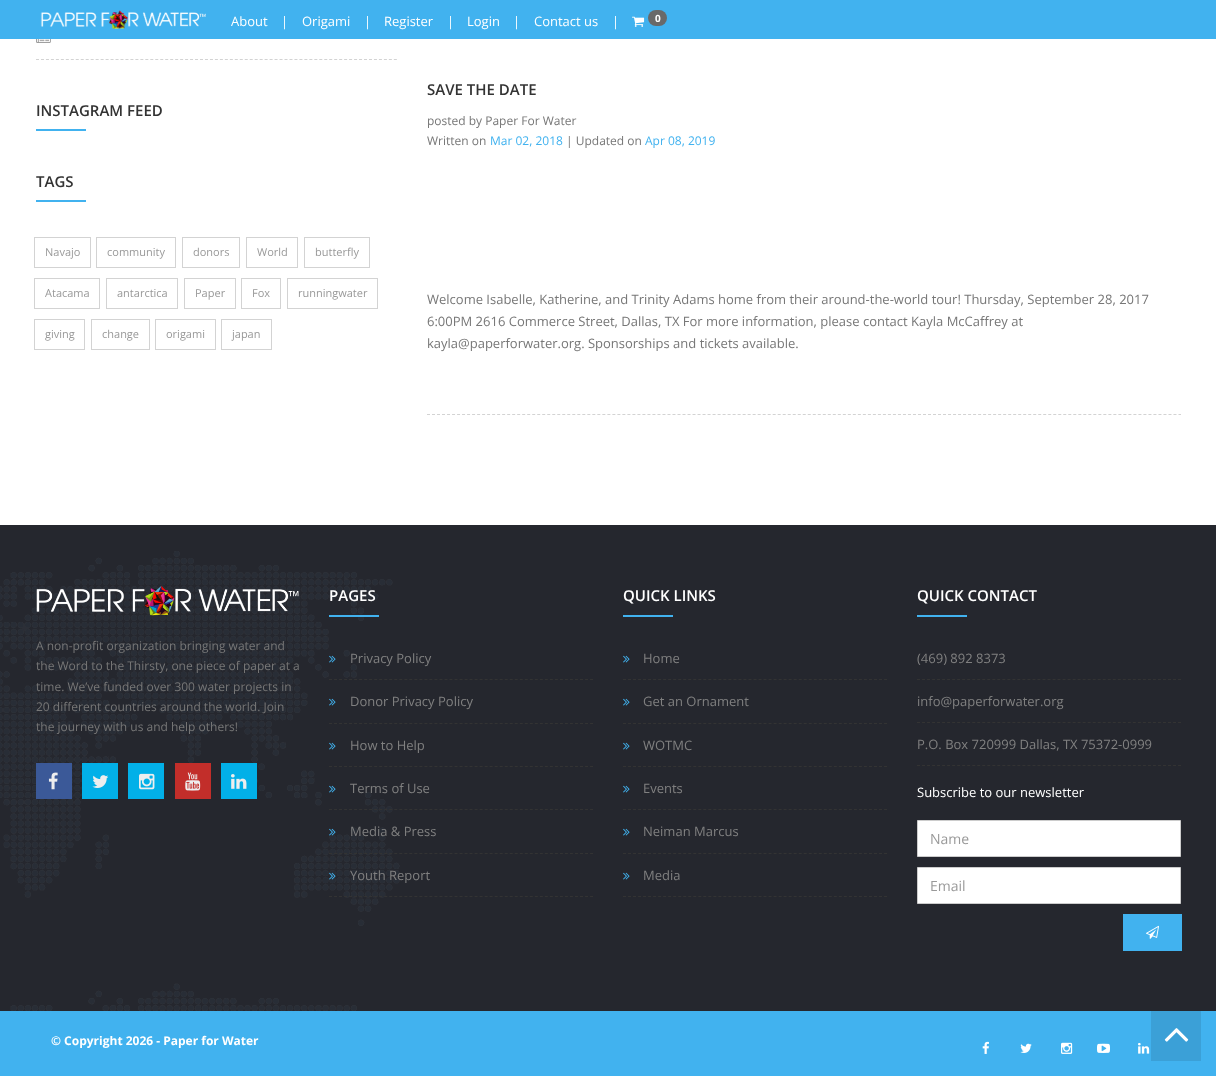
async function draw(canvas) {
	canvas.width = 1216;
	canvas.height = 1076;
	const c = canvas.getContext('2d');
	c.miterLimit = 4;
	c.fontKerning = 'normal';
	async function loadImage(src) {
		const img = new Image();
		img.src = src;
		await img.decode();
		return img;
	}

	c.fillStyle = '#fff';
	c.fillRect(0, 0, 1216, 1076);
	c.fillStyle = '#41b2ef';
	c.fillRect(0, 0, 1216, 39);
	c.drawImage(await loadImage('img1.png'), 40, 10, 166, 19);
	c.font = '13px Open Sans';
	c.fillStyle = '#fff';
	for (const [text, x, y] of [
		['About', 231, 26],
		['|', 281, 26],
		['Origami', 302, 26],
		['|', 364, 26],
		['Register', 384, 26],
		['|', 447, 26],
		['Login', 467, 26],
		['|', 513, 26],
		['Contact us', 534, 26],
		['|', 612, 26],
	]) {
		c.fillText(text, x, y);
	}
	c.drawImage(await loadImage('img2.png'), 632, 16, 13, 11);
	c.fillStyle = '#696969';
	c.beginPath();
	c.roundRect(648, 10, 19, 16, 8);
	c.fill();
	c.font = 'bold 10px Open Sans';
	c.fillStyle = '#fff';
	c.fillText('0', 655, 22);
	c.beginPath();
	c.moveTo(36, 59.5);
	c.lineTo(397, 59.5);
	c.strokeStyle = '#d3d3d3';
	c.setLineDash([3, 1.97]);
	c.stroke();
	c.drawImage(await loadImage('img3.png'), 36, 39, 15, 4);
	c.font = '600 15px Open Sans';
	c.fillStyle = '#333';
	c.fillText('INSTAGRAM FEED', 36, 116);
	c.fillStyle = '#41b2ef';
	c.fillRect(36, 129, 50, 2);
	c.fillStyle = '#333';
	c.fillText('TAGS', 36, 187);
	c.fillStyle = '#41b2ef';
	c.fillRect(36, 200, 50, 2);
	c.setLineDash([]);
	c.strokeRect(34.5, 237.5, 56, 30);
	c.font = '11px Open Sans';
	c.fillStyle = '#999';
	c.fillText('Navajo', 45, 256);
	c.strokeRect(96.5, 237.5, 79, 30);
	c.fillText('community', 107, 256);
	c.strokeRect(182.5, 237.5, 57, 30);
	c.fillText('donors', 193, 256);
	c.strokeRect(246.5, 237.5, 51, 30);
	c.fillText('World', 257, 256);
	c.strokeRect(304.5, 237.5, 65, 30);
	c.fillText('butterfly', 315, 256);
	c.strokeRect(34.5, 278.5, 65, 30);
	c.fillText('Atacama', 45, 297);
	c.strokeRect(106.5, 278.5, 71, 30);
	c.fillText('antarctica', 117, 297);
	c.strokeRect(184.5, 278.5, 51, 30);
	c.fillText('Paper', 195, 297);
	c.strokeRect(241.5, 278.5, 39, 30);
	c.fillText('Fox', 252, 297);
	c.strokeRect(287.5, 278.5, 90, 30);
	c.fillText('runningwater', 298, 297);
	c.strokeRect(34.5, 319.5, 50, 30);
	c.fillText('giving', 45, 338);
	c.strokeRect(91.5, 319.5, 58, 30);
	c.fillText('change', 102, 338);
	c.strokeRect(155.5, 319.5, 60, 30);
	c.fillText('origami', 166, 338);
	c.strokeRect(221.5, 319.5, 50, 30);
	c.fillText('japan', 232, 338);
	c.beginPath();
	c.moveTo(427, 414.5);
	c.lineTo(1181, 414.5);
	c.setLineDash([3, 2.01]);
	c.stroke();
	c.font = '600 15px Open Sans';
	c.fillStyle = '#333';
	c.fillText('SAVE THE DATE', 427, 95);
	c.font = '12px Open Sans';
	c.fillStyle = '#777';
	c.fillText('posted by Paper For Water', 427, 125);
	c.fillText('Written on', 427, 145);
	c.fillStyle = '#41b2ef';
	c.fillText('Mar 02, 2018', 490, 145);
	c.fillStyle = '#777';
	c.fillText('| Updated on', 566, 145);
	c.fillStyle = '#41b2ef';
	c.fillText('Apr 08, 2019', 645, 145);
	c.font = '13px Open Sans';
	c.fillStyle = '#777';
	for (const [text, x, y] of [
		['Welcome Isabelle, Katherine, and Trinity Adams home from their around-the-world tour! Thursday, September 28, 2017', 427, 304],
		['6:00PM 2616 Commerce Street, Dallas, TX For more information, please contact Kayla McCaffrey at', 427, 326],
		['kayla@paperforwater.org. Sponsorships and tickets available.', 427, 348],
	]) {
		c.fillText(text, x, y);
	}
	c.fillStyle = '#25272e';
	c.fillRect(0, 525, 1216, 486);
	c.drawImage(await loadImage('img4.png'), 0, 551, 400, 460);
	c.drawImage(await loadImage('img5.png'), 36, 585, 263, 31);
	c.font = '12px Open Sans';
	c.fillStyle = '#777';
	for (const [text, x, y] of [
		['A non-profit organization bringing water and', 36, 650],
		['the Word to the Thirsty, one piece of paper at a', 36, 670],
		['time. We’ve funded over 300 water projects in', 36, 691],
		['20 different countries around the world. Join', 36, 711],
		['the journey with us and help others!', 36, 731],
	]) {
		c.fillText(text, x, y);
	}
	c.fillStyle = '#3b5998';
	c.fillRect(36, 763, 36, 36);
	c.drawImage(await loadImage('img6.png'), 48, 772, 10, 18);
	c.fillStyle = '#02b0e8';
	c.fillRect(82, 763, 36, 36);
	c.drawImage(await loadImage('img7.png'), 92, 775, 17, 13);
	c.fillRect(128, 763, 36, 36);
	c.drawImage(await loadImage('img8.png'), 139, 773, 16, 17);
	c.fillStyle = '#c22e2a';
	c.fillRect(175, 763, 36, 36);
	c.drawImage(await loadImage('img9.png'), 185, 772, 16, 19);
	c.fillStyle = '#02b0e8';
	c.fillRect(221, 763, 36, 36);
	c.drawImage(await loadImage('img10.png'), 231, 774, 16, 15);
	c.font = '600 15px Open Sans';
	c.fillStyle = '#fff';
	c.fillText('PAGES', 329, 601);
	c.fillStyle = '#41b2ef';
	c.fillRect(329, 615, 50, 2);
	c.beginPath();
	c.moveTo(329, 679.5);
	c.lineTo(593, 679.5);
	c.strokeStyle = '#333';
	c.setLineDash([3, 2.02]);
	c.stroke();
	c.drawImage(await loadImage('img11.png'), 329, 655, 7, 8);
	c.font = '13px Open Sans';
	c.fillStyle = '#808080';
	c.fillText('Privacy Policy', 350, 663);
	c.beginPath();
	c.moveTo(329, 723.5);
	c.lineTo(593, 723.5);
	c.stroke();
	c.drawImage(await loadImage('img11.png'), 329, 698, 7, 8);
	c.fillText('Donor Privacy Policy', 350, 706);
	c.beginPath();
	c.moveTo(329, 766.5);
	c.lineTo(593, 766.5);
	c.stroke();
	c.drawImage(await loadImage('img11.png'), 329, 742, 7, 8);
	c.fillText('How to Help', 350, 750);
	c.beginPath();
	c.moveTo(329, 809.5);
	c.lineTo(593, 809.5);
	c.stroke();
	c.drawImage(await loadImage('img11.png'), 329, 785, 7, 8);
	c.fillText('Terms of Use', 350, 793);
	c.beginPath();
	c.moveTo(329, 853.5);
	c.lineTo(593, 853.5);
	c.stroke();
	c.drawImage(await loadImage('img12.png'), 329, 828, 7, 8);
	c.fillText('Media & Press', 350, 836);
	c.beginPath();
	c.moveTo(329, 896.5);
	c.lineTo(593, 896.5);
	c.stroke();
	c.drawImage(await loadImage('img13.png'), 329, 872, 7, 8);
	c.fillText('Youth Report', 350, 880);
	c.font = '600 15px Open Sans';
	c.fillStyle = '#fff';
	c.fillText('QUICK LINKS', 623, 601);
	c.fillStyle = '#41b2ef';
	c.fillRect(623, 615, 50, 2);
	c.beginPath();
	c.moveTo(623, 679.5);
	c.lineTo(887, 679.5);
	c.stroke();
	c.drawImage(await loadImage('img11.png'), 623, 655, 7, 8);
	c.font = '13px Open Sans';
	c.fillStyle = '#808080';
	c.fillText('Home', 643, 663);
	c.beginPath();
	c.moveTo(623, 723.5);
	c.lineTo(887, 723.5);
	c.stroke();
	c.drawImage(await loadImage('img11.png'), 623, 698, 7, 8);
	c.fillText('Get an Ornament', 643, 706);
	c.beginPath();
	c.moveTo(623, 766.5);
	c.lineTo(887, 766.5);
	c.stroke();
	c.drawImage(await loadImage('img11.png'), 623, 742, 7, 8);
	c.fillText('WOTMC', 643, 750);
	c.beginPath();
	c.moveTo(623, 809.5);
	c.lineTo(887, 809.5);
	c.stroke();
	c.drawImage(await loadImage('img11.png'), 623, 785, 7, 8);
	c.fillText('Events', 643, 793);
	c.beginPath();
	c.moveTo(623, 853.5);
	c.lineTo(887, 853.5);
	c.stroke();
	c.drawImage(await loadImage('img11.png'), 623, 828, 7, 8);
	c.fillText('Neiman Marcus', 643, 836);
	c.beginPath();
	c.moveTo(623, 896.5);
	c.lineTo(887, 896.5);
	c.stroke();
	c.drawImage(await loadImage('img11.png'), 623, 872, 7, 8);
	c.fillText('Media', 643, 880);
	c.font = '600 15px Open Sans';
	c.fillStyle = '#fff';
	c.fillText('QUICK CONTACT', 917, 601);
	c.fillStyle = '#41b2ef';
	c.fillRect(917, 615, 50, 2);
	c.beginPath();
	c.moveTo(917, 679.5);
	c.lineTo(1181, 679.5);
	c.stroke();
	c.font = '13px Open Sans';
	c.fillStyle = '#808080';
	c.fillText('(469) 892 8373', 917, 663);
	c.beginPath();
	c.moveTo(917, 722.5);
	c.lineTo(1181, 722.5);
	c.stroke();
	c.fillText('info@paperforwater.org', 917, 706);
	c.beginPath();
	c.moveTo(917, 765.5);
	c.lineTo(1181, 765.5);
	c.stroke();
	c.fillText('P.O. Box 720999 Dallas, TX 75372-0999', 917, 749);
	c.fillStyle = '#fff';
	c.fillText('Subscribe to our newsletter', 917, 797);
	c.beginPath();
	c.rect(917.5, 820.5, 263, 36);
	c.fill();
	c.strokeStyle = '#ccc';
	c.setLineDash([]);
	c.stroke();
	c.font = '14px Open Sans';
	c.fillStyle = '#999';
	c.fillText('Name', 930, 844);
	c.fillStyle = '#fff';
	c.beginPath();
	c.rect(917.5, 867.5, 263, 36);
	c.fill();
	c.stroke();
	c.fillStyle = '#999';
	c.fillText('Email', 930, 891);
	c.fillStyle = '#41b2ef';
	c.fillRect(1123, 914, 59, 37);
	c.drawImage(await loadImage('img14.png'), 1146, 925, 13, 14);
	c.fillRect(0, 1011, 1216, 65);
	c.font = 'bold 12px Open Sans';
	c.fillStyle = '#fff';
	c.fillText('© Copyright 2026 - Paper for Water', 51, 1045);
	c.drawImage(await loadImage('img15.png'), 982, 1041, 7, 13);
	c.drawImage(await loadImage('img16.png'), 1020, 1043, 12, 10);
	c.drawImage(await loadImage('img17.png'), 1061, 1042, 12, 12);
	c.drawImage(await loadImage('img18.png'), 1097, 1043, 13, 10);
	c.drawImage(await loadImage('img19.png'), 1138, 1042, 12, 12);
	c.fillStyle = '#3ba0d7';
	c.fillRect(1151, 1011, 50, 50);
	c.drawImage(await loadImage('img20.png'), 1164, 1028, 25, 14);
}

draw(document.querySelector('canvas'));
